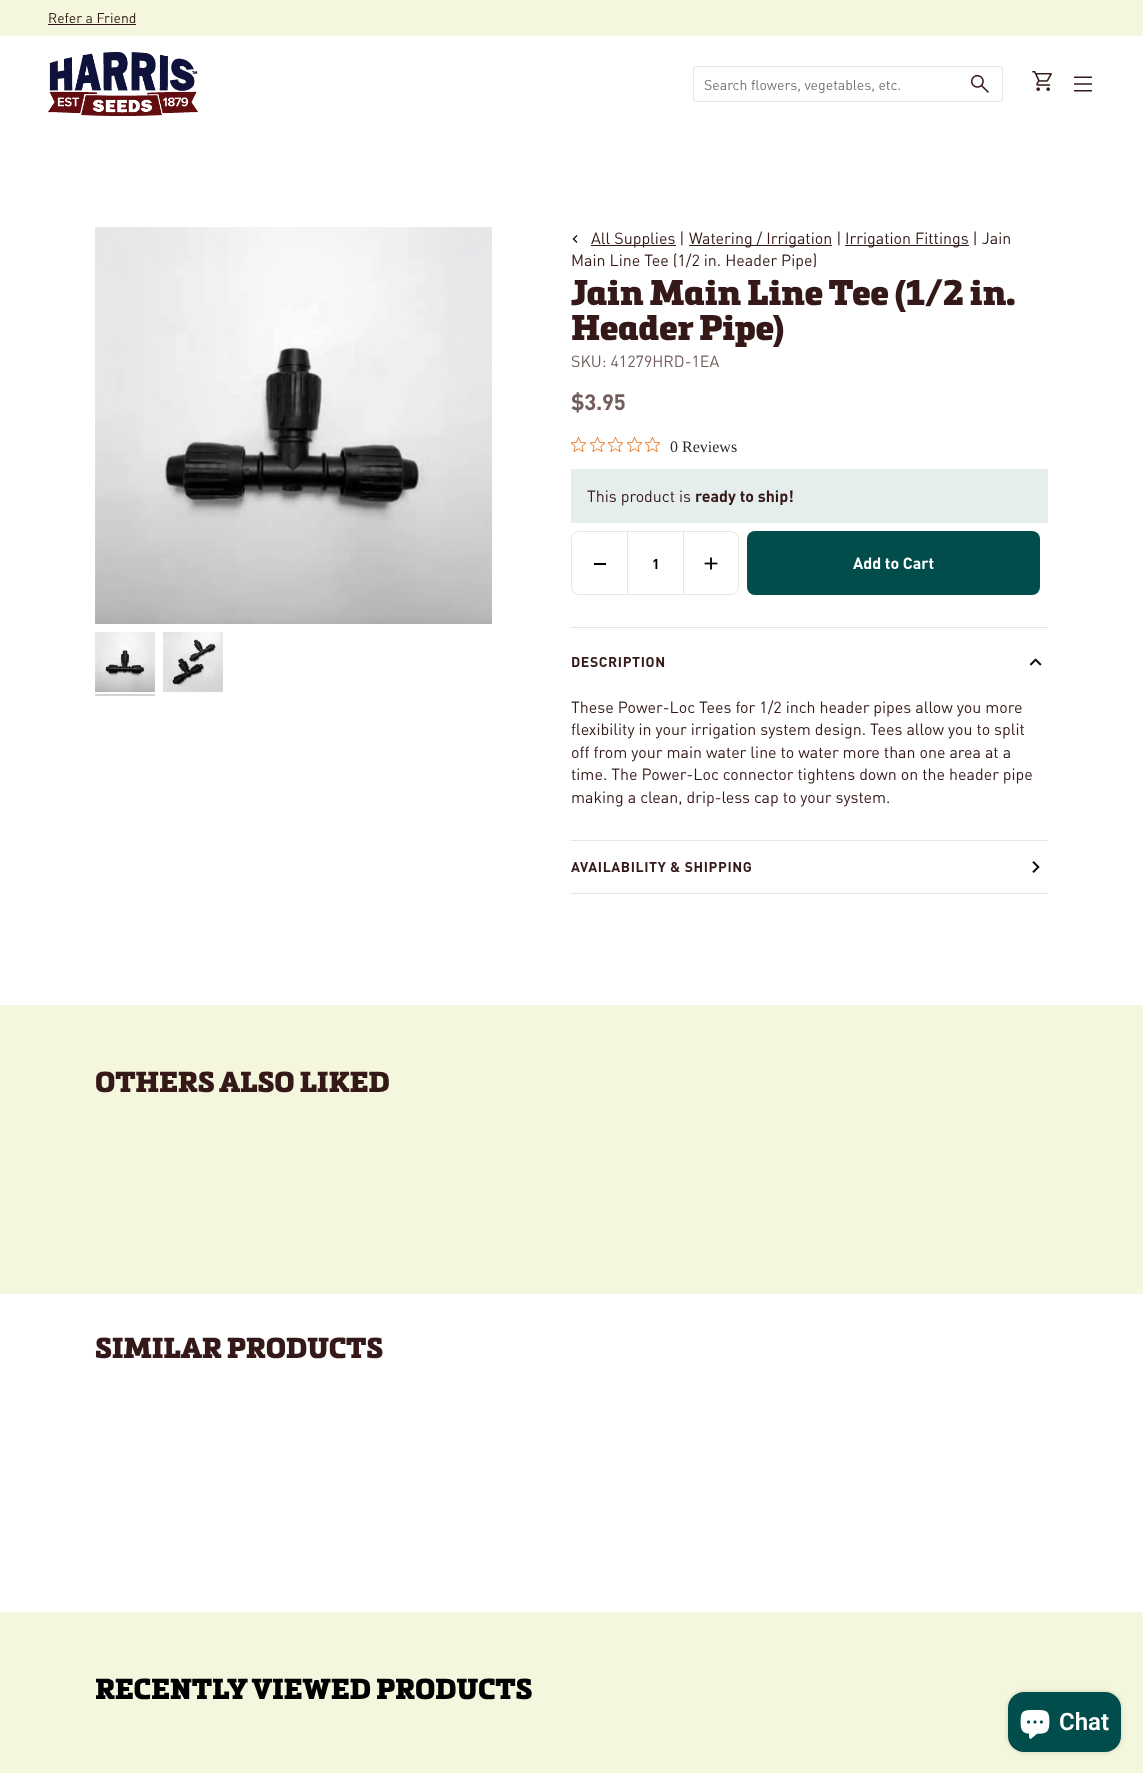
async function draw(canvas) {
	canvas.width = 1143;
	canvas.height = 1773;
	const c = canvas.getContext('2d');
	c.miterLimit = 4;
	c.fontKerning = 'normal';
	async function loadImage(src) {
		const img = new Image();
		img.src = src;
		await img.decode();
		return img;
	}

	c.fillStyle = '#fff';
	c.fillRect(0, 0, 1143, 1773);
	c.fillStyle = '#f4f7de';
	c.fillRect(0, 0, 1143, 36);
	c.font = '14px DIN';
	c.fillStyle = '#351918';
	c.fillText('Refer a Friend', 48, 23);
	c.fillRect(48, 24, 88, 1);
	c.drawImage(await loadImage('img1.png'), 48, 52, 150, 64);
	c.beginPath();
	c.roundRect(693.5, 66.5, 309, 35, 2.5);
	c.strokeStyle = '#e5e5e5';
	c.stroke();
	c.font = '14.1px DIN';
	c.fillStyle = '#757575';
	c.fillText('Search flowers, vegetables, etc.', 704, 90);
	c.drawImage(await loadImage('img2.png'), 971, 75, 18, 18);
	c.drawImage(await loadImage('img3.png'), 1032, 71, 20, 20);
	c.drawImage(await loadImage('img4.png'), 1074, 76, 18, 16);
	c.drawImage(await loadImage('img5.png'), 95, 227, 397, 397);
	c.drawImage(await loadImage('img6.png'), 95, 632, 60, 60);
	c.fillStyle = '#d7d1d1';
	c.fillRect(95, 694, 60, 2);
	c.drawImage(await loadImage('img7.png'), 163, 632, 60, 60);
	c.drawImage(await loadImage('img8.png'), 572, 235, 6, 8);
	c.fillStyle = '#351918';
	c.fillRect(591, 245, 85, 1);
	c.font = '16px DIN';
	c.fillText('All Supplies |', 591, 244);
	c.fillRect(689, 245, 143, 1);
	c.fillText('Watering / Irrigation |', 689, 244);
	c.fillRect(845, 245, 124, 1);
	c.fillText('Irrigation Fittings | Jain', 845, 244);
	c.fillText('Main Line Tee (1/2 in. Header Pipe)', 571, 266);
	c.letterSpacing = '-0.35px';
	c.font = '900 35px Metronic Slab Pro';
	c.fillText('Jain Main Line Tee (1/2 in.', 571, 305);
	c.fillText('Header Pipe)', 571, 340);
	c.letterSpacing = '0px';
	c.font = '16px DIN';
	c.fillStyle = '#725e5d';
	c.fillText('SKU: 41279HRD-1EA', 571, 367);
	c.letterSpacing = '-0.25px';
	c.font = 'bold 22px DIN';
	c.fillText('$3.95', 571, 410);
	c.drawImage(await loadImage('img9.png'), 571, 437, 15, 15);
	c.drawImage(await loadImage('img9.png'), 590, 437, 15, 15);
	c.drawImage(await loadImage('img9.png'), 608, 437, 15, 15);
	c.drawImage(await loadImage('img9.png'), 627, 437, 15, 15);
	c.drawImage(await loadImage('img9.png'), 645, 437, 15, 15);
	c.letterSpacing = '0px';
	c.font = '16px Liberation Serif';
	c.fillStyle = '#2c2c2c';
	c.fillText('0 Reviews', 670, 452);
	c.fillStyle = '#e5eded';
	c.fillRect(571, 469, 477, 54);
	c.font = '16px DIN';
	c.fillStyle = '#351918';
	c.fillText('This product is', 587, 502);
	c.font = 'bold 16px DIN';
	c.fillText('ready to ship!', 695, 502);
	c.beginPath();
	c.roundRect(571.5, 531.5, 56, 63, [7.5, 0, 0, 7.5]);
	c.stroke();
	for (const [x, y, w, h, color] of [
		[594, 563, 12, 2, '#000'],
		[628, 531, 55, 1, '#e5e5e5'],
		[628, 594, 55, 1, '#e5e5e5'],
	]) {
		c.fillStyle = color;
		c.fillRect(x, y, w, h);
	}
	c.font = 'bold 14px DIN';
	c.fillStyle = '#000';
	c.fillText('1', 652, 569);
	c.beginPath();
	c.roundRect(683.5, 531.5, 55, 63, [0, 7.5, 7.5, 0]);
	c.stroke();
	c.drawImage(await loadImage('img10.png'), 704, 557, 14, 13);
	c.fillStyle = '#004d4c';
	c.beginPath();
	c.roundRect(747, 531, 293, 64, 8);
	c.fill();
	c.font = 'bold 16px DIN';
	c.fillStyle = '#fff';
	c.fillText('Add to Cart', 853, 569);
	c.fillStyle = '#e5e5e5';
	c.fillRect(571, 627, 477, 1);
	c.fillRect(571, 840, 477, 1);
	c.letterSpacing = '0.6px';
	c.font = 'bold 14px DIN';
	c.fillStyle = '#351918';
	c.fillText('DESCRIPTION', 571, 667);
	c.drawImage(await loadImage('img11.png'), 1029, 658, 13, 8);
	c.letterSpacing = '0px';
	c.font = '16px DIN';
	for (const [text, x, y] of [
		['These Power-Loc Tees for 1/2 inch header pipes allow you more', 571, 713],
		['flexibility in your irrigation system design. Tees allow you to split', 571, 735],
		['off from your main water line to water more than one area at a', 571, 758],
		['time. The Power-Loc connector tightens down on the header pipe', 571, 780],
		['making a clean, drip-less cap to your system.', 571, 803],
	]) {
		c.fillText(text, x, y);
	}
	c.fillStyle = '#e5e5e5';
	c.fillRect(571, 893, 477, 1);
	c.letterSpacing = '0.6px';
	c.font = 'bold 14px DIN';
	c.fillStyle = '#351918';
	c.fillText('AVAILABILITY & SHIPPING', 571, 872);
	c.drawImage(await loadImage('img12.png'), 1032, 861, 8, 12);
	c.fillStyle = '#f4f7de';
	c.fillRect(0, 1005, 1143, 289);
	c.letterSpacing = '-0.25px';
	c.font = '900 28.6px Metronic Slab Pro';
	c.fillStyle = '#351918';
	c.fillText('OTHERS ALSO LIKED', 95, 1092);
	c.fillText('SIMILAR PRODUCTS', 95, 1358);
	c.fillStyle = '#f4f7de';
	c.fillRect(0, 1612, 1143, 161);
	c.fillStyle = '#000';
	c.fillText('RECENTLY VIEWED PRODUCTS', 95, 1699);
	c.fillStyle = '#00000026';
	c.filter = 'blur(2.5px)';
	c.beginPath();
	c.roundRect(1008, 1692, 113, 60, 16);
	c.fill();
	c.filter = 'none';
	c.fillStyle = '#004d4c';
	c.beginPath();
	c.roundRect(1008, 1692, 113, 60, 16);
	c.fill();
	c.drawImage(await loadImage('img13.png'), 1020, 1710, 30, 29);
	c.letterSpacing = '0px';
	c.font = '600 24px Roboto';
	c.fillStyle = '#fff';
	c.fillText('Chat', 1059, 1730);
}

draw(document.querySelector('canvas'));
